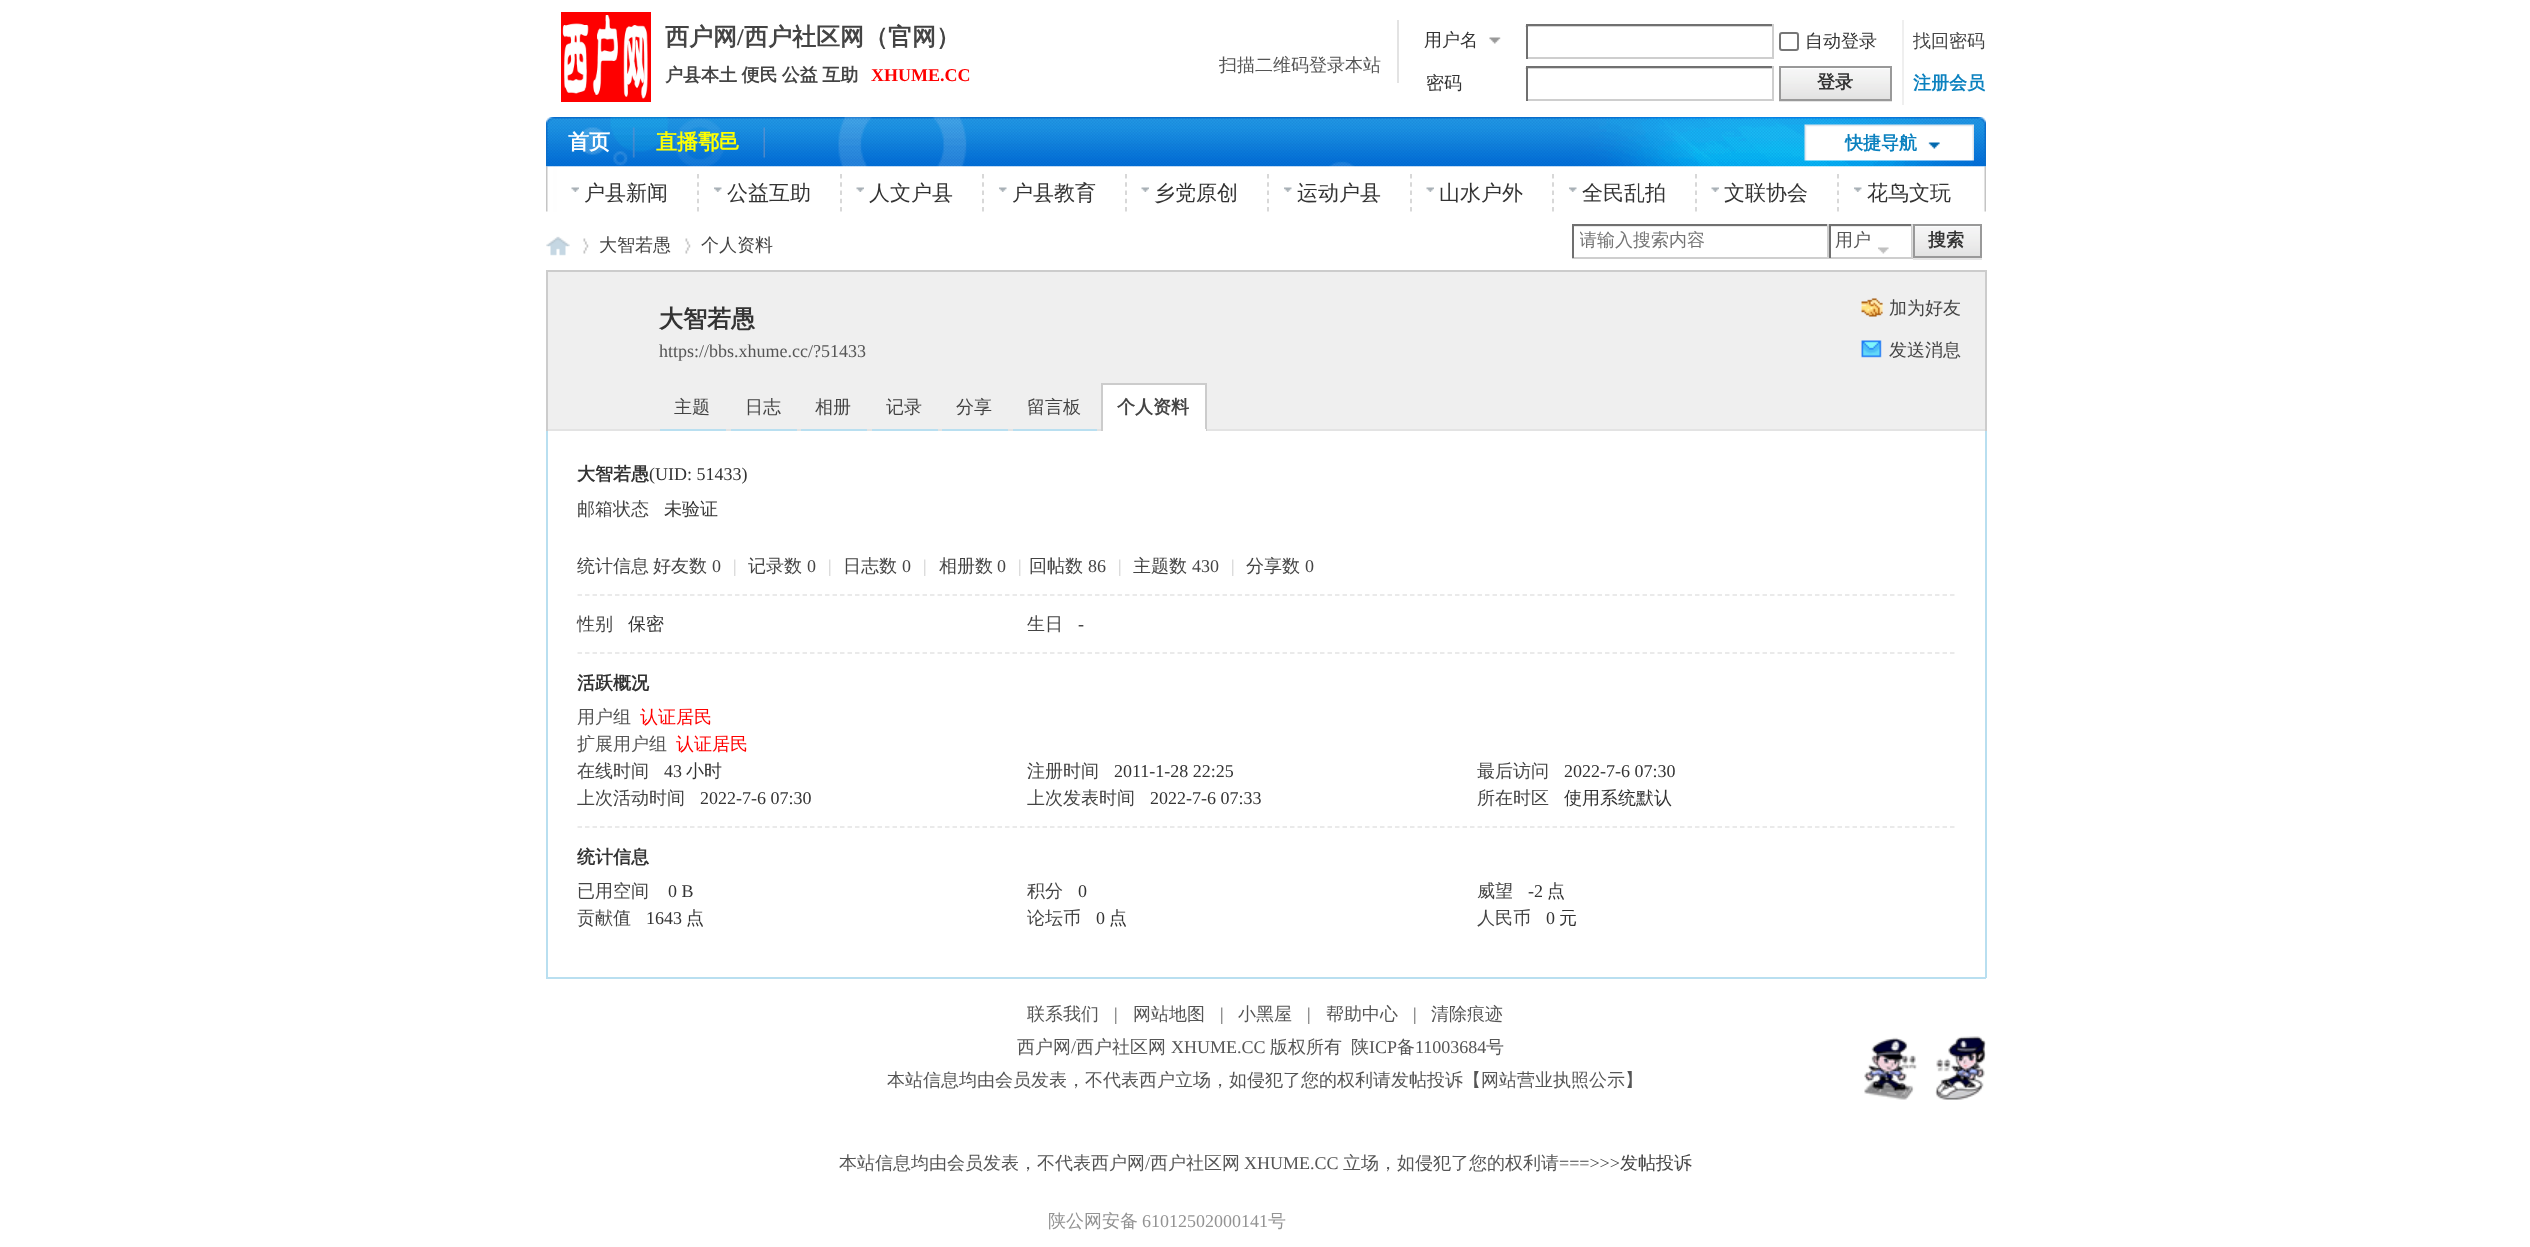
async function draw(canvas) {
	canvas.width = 2530;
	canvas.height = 1247;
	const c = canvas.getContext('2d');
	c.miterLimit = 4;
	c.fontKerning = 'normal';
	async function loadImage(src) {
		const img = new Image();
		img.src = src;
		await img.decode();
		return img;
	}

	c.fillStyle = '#fff';
	c.fillRect(0, 0, 2530, 1247);
	c.drawImage(await loadImage('img1.png'), 561, 12, 90, 90);
	c.font = 'bold 24px WenQuanYi Zen Hei';
	c.fillStyle = '#444';
	c.fillText('西户网', 665, 45);
	c.font = 'bold 24px Liberation Serif';
	c.fillText('/', 737, 45);
	c.font = 'bold 24px WenQuanYi Zen Hei';
	c.fillText('西户社区网（官网）', 744, 45);
	c.wordSpacing = '-1px';
	c.font = 'bold 18px WenQuanYi Zen Hei';
	c.fillText('户县本土 便民 公益 互助', 665, 81);
	c.wordSpacing = '0px';
	c.font = 'bold 18px Liberation Serif';
	c.fillStyle = '#f00';
	c.fillText('XHUME.CC', 871, 81);
	c.fillStyle = '#e3e3e3';
	c.fillRect(1397, 20, 2, 63);
	c.font = '500 18px WenQuanYi Zen Hei';
	c.fillStyle = '#555';
	c.fillText('扫描二维码登录本站', 1219, 71);
	c.drawImage(await loadImage('img2.png'), 1489, 37, 12, 7);
	c.fillStyle = '#333';
	c.fillText('用户名', 1424, 46);
	c.drawImage(await loadImage('img3.png'), 1525, 25, 247, 2);
	for (const [x, y, w, h, color] of [
		[1526, 24, 247, 2, '#707070'],
		[1772, 24, 2, 35, '#cecece'],
		[1526, 57, 247, 2, '#cecece'],
		[1526, 24, 2, 35, '#707070'],
	]) {
		c.fillStyle = color;
		c.fillRect(x, y, w, h);
	}
	c.beginPath();
	c.roundRect(1780, 33, 18, 17, 2);
	c.strokeStyle = '#767676';
	c.lineWidth = 2;
	c.stroke();
	c.fillStyle = '#333';
	c.fillText('自动登录', 1805, 47);
	c.fillStyle = '#444';
	c.fillText('找回密码', 1913, 47);
	c.fillStyle = '#333';
	c.fillText('密码', 1426, 89);
	c.drawImage(await loadImage('img3.png'), 1525, 67, 247, 2);
	for (const [x, y, w, h, color] of [
		[1526, 66, 247, 2, '#707070'],
		[1772, 66, 2, 35, '#cecece'],
		[1526, 99, 247, 2, '#cecece'],
		[1526, 66, 2, 35, '#707070'],
		[1902, 20, 2, 85, '#efefef'],
	]) {
		c.fillStyle = color;
		c.fillRect(x, y, w, h);
	}
	c.fillStyle = '#e5e5e5';
	c.beginPath();
	c.moveTo(1779, 100);
	c.lineTo(1779, 102);
	c.lineTo(1892, 102);
	c.lineTo(1892, 68);
	c.lineTo(1892, 100);
	c.closePath();
	c.fill();
	c.drawImage(await loadImage('img4.png'), 1781, 68, 109, 31);
	c.strokeStyle = '#999';
	c.strokeRect(1780, 67, 111, 33);
	c.font = 'bold 18px WenQuanYi Zen Hei';
	c.fillStyle = '#333';
	c.fillText('登录', 1817, 88);
	c.fillStyle = '#0b81bf';
	c.fillText('注册会员', 1913, 89);
	c.drawImage(await loadImage('img5.png'), 546, 117, 1440, 50);
	c.drawImage(await loadImage('img6.png'), 632, 127, 3, 31);
	c.font = 'bold 21px WenQuanYi Zen Hei';
	c.fillStyle = '#fff';
	c.fillText('首页', 568, 149);
	c.drawImage(await loadImage('img7.png'), 763, 127, 2, 31);
	c.fillStyle = '#ff0';
	c.fillText('直播鄠邑', 656, 149);
	c.drawImage(await loadImage('img8.png'), 1804, 124, 170, 37);
	c.font = 'bold 18px WenQuanYi Zen Hei';
	c.fillStyle = '#0b81bf';
	c.fillText('快捷导航', 1845, 149);
	c.drawImage(await loadImage('img9.png'), 546, 166, 1440, 46);
	c.drawImage(await loadImage('img10.png'), 571, 187, 8, 5);
	c.font = '500 21px WenQuanYi Zen Hei';
	c.fillStyle = '#333';
	c.fillText('户县新闻', 584, 200);
	c.beginPath();
	c.moveTo(698, 174);
	c.lineTo(698, 211.5);
	c.strokeStyle = '#ccc';
	c.lineWidth = 1.5;
	c.setLineDash([4.5, 3.75]);
	c.stroke();
	c.drawImage(await loadImage('img11.png'), 714, 187, 8, 5);
	c.fillText('公益互助', 727, 200);
	c.beginPath();
	c.moveTo(841, 174);
	c.lineTo(841, 211.5);
	c.stroke();
	c.drawImage(await loadImage('img12.png'), 856, 187, 8, 5);
	c.fillText('人文户县', 869, 200);
	c.beginPath();
	c.moveTo(983, 174);
	c.lineTo(983, 211.5);
	c.stroke();
	c.drawImage(await loadImage('img13.png'), 999, 187, 8, 5);
	c.fillText('户县教育', 1012, 200);
	c.beginPath();
	c.moveTo(1126, 174);
	c.lineTo(1126, 211.5);
	c.stroke();
	c.drawImage(await loadImage('img10.png'), 1141, 187, 8, 5);
	c.fillText('乡党原创', 1154, 200);
	c.beginPath();
	c.moveTo(1268, 174);
	c.lineTo(1268, 211.5);
	c.stroke();
	c.drawImage(await loadImage('img11.png'), 1284, 187, 8, 5);
	c.fillText('运动户县', 1297, 200);
	c.beginPath();
	c.moveTo(1411, 174);
	c.lineTo(1411, 211.5);
	c.stroke();
	c.drawImage(await loadImage('img10.png'), 1426, 187, 8, 5);
	c.fillText('山水户外', 1439, 200);
	c.beginPath();
	c.moveTo(1553, 174);
	c.lineTo(1553, 211.5);
	c.stroke();
	c.drawImage(await loadImage('img13.png'), 1569, 187, 8, 5);
	c.fillText('全民乱拍', 1582, 200);
	c.beginPath();
	c.moveTo(1696, 174);
	c.lineTo(1696, 211.5);
	c.stroke();
	c.drawImage(await loadImage('img12.png'), 1711, 187, 8, 5);
	c.fillText('文联协会', 1724, 200);
	c.beginPath();
	c.moveTo(1838, 174);
	c.lineTo(1838, 211.5);
	c.stroke();
	c.drawImage(await loadImage('img11.png'), 1854, 187, 8, 5);
	c.fillText('花鸟文玩', 1867, 200);
	c.drawImage(await loadImage('img14.png'), 546, 236, 24, 20);
	c.drawImage(await loadImage('img15.png'), 583, 238, 6, 16);
	c.font = '500 18px WenQuanYi Zen Hei';
	c.fillStyle = '#444';
	c.fillText('大智若愚', 599, 251);
	c.drawImage(await loadImage('img15.png'), 685, 238, 6, 16);
	c.fillText('个人资料', 701, 251);
	c.drawImage(await loadImage('img16.png'), 1574, 226, 253, 1);
	for (const [x, y, w, h, color] of [
		[1572, 224, 341, 2, '#707070'],
		[1827, 224, 2, 34, '#cecece'],
		[1572, 257, 257, 2, '#cecece'],
		[1572, 224, 2, 34, '#707070'],
	]) {
		c.fillStyle = color;
		c.fillRect(x, y, w, h);
	}
	c.save();
	c.beginPath();
	c.rect(1580, 228, 232, 26);
	c.clip();
	c.fillStyle = '#757575';
	c.fillText('请输入搜索内容', 1579, 246);
	c.restore();
	c.drawImage(await loadImage('img17.png'), 1831, 226, 80, 1);
	for (const [x, y, w, h, color] of [
		[1911, 224, 2, 34, '#cecece'],
		[1829, 257, 84, 2, '#cecece'],
		[1829, 224, 2, 34, '#707070'],
	]) {
		c.fillStyle = color;
		c.fillRect(x, y, w, h);
	}
	c.drawImage(await loadImage('img18.png'), 1878, 247, 11, 7);
	c.fillStyle = '#555';
	c.fillText('用户', 1835, 246);
	c.fillStyle = '#e5e5e5';
	c.beginPath();
	c.moveTo(1913, 258);
	c.lineTo(1913, 260);
	c.lineTo(1982, 260);
	c.lineTo(1982, 225);
	c.lineTo(1982, 258);
	c.closePath();
	c.fill();
	c.drawImage(await loadImage('img19.png'), 1912, 225, 68, 33);
	c.strokeStyle = '#999';
	c.lineWidth = 2;
	c.setLineDash([]);
	c.strokeRect(1914, 225, 67, 32);
	c.font = 'bold 18px WenQuanYi Zen Hei';
	c.fillStyle = '#333';
	c.fillText('搜索', 1928, 246);
	for (const [x, y, w, h, color] of [
		[548, 272, 1437, 157, '#efefef'],
		[546, 270, 1440, 2, '#ccc'],
		[1985, 270, 2, 161, '#ccc'],
		[546, 270, 2, 161, '#ccc'],
	]) {
		c.fillStyle = color;
		c.fillRect(x, y, w, h);
	}
	c.font = 'bold 24px WenQuanYi Zen Hei';
	c.fillStyle = '#333';
	c.fillText('大智若愚', 659, 327);
	c.font = '18px Liberation Serif';
	c.fillStyle = '#555';
	c.fillText('https://bbs.xhume.cc/?51433', 659, 357);
	c.drawImage(await loadImage('img20.png'), 1861, 298, 22, 19);
	c.font = '500 18px WenQuanYi Zen Hei';
	c.fillStyle = '#444';
	c.fillText('加为好友', 1889, 314);
	c.drawImage(await loadImage('img21.png'), 1861, 340, 21, 18);
	c.fillText('发送消息', 1889, 356);
	c.fillStyle = '#e3e3e3';
	c.fillRect(548, 429, 1437, 2);
	c.fillStyle = '#b9dff0';
	c.fillRect(660, 429, 66, 2);
	c.fillStyle = '#444';
	c.fillText('主题', 674, 413);
	c.fillStyle = '#b9dff0';
	c.fillRect(731, 429, 66, 2);
	c.fillStyle = '#444';
	c.fillText('日志', 745, 413);
	c.fillStyle = '#b9dff0';
	c.fillRect(801, 429, 66, 2);
	c.fillStyle = '#444';
	c.fillText('相册', 815, 413);
	c.fillStyle = '#b9dff0';
	c.fillRect(872, 429, 66, 2);
	c.fillStyle = '#444';
	c.fillText('记录', 886, 413);
	c.fillStyle = '#b9dff0';
	c.fillRect(942, 429, 66, 2);
	c.fillStyle = '#444';
	c.fillText('分享', 956, 413);
	c.fillStyle = '#b9dff0';
	c.fillRect(1013, 429, 84, 2);
	c.fillStyle = '#444';
	c.fillText('留言板', 1027, 413);
	for (const [x, y, w, h, color] of [
		[1103, 385, 102, 44, '#fff'],
		[1101, 383, 105, 2, '#ccc'],
		[1205, 383, 2, 48, '#ccc'],
		[1101, 429, 105, 2, '#fff'],
		[1101, 383, 2, 48, '#ccc'],
	]) {
		c.fillStyle = color;
		c.fillRect(x, y, w, h);
	}
	c.font = 'bold 18px WenQuanYi Zen Hei';
	c.fillStyle = '#444';
	c.fillText('个人资料', 1117, 413);
	for (const [x, y, w, h, color] of [
		[1985, 431, 2, 547, '#b9dff0'],
		[546, 977, 1440, 2, '#b9dff0'],
		[546, 431, 2, 547, '#b9dff0'],
	]) {
		c.fillStyle = color;
		c.fillRect(x, y, w, h);
	}
	c.beginPath();
	c.moveTo(577.5, 653);
	c.lineTo(1954.5, 653);
	c.strokeStyle = '#e3e3e3';
	c.lineWidth = 1.5;
	c.setLineDash([4.5, 3]);
	c.stroke();
	c.fillStyle = '#333';
	c.fillText('大智若愚', 577, 480);
	c.font = '18px Liberation Serif';
	c.fillText('(UID: 51433)', 649, 480);
	c.font = '500 18px WenQuanYi Zen Hei';
	c.fillStyle = '#444';
	c.fillText('邮箱状态', 577, 515);
	c.fillStyle = '#333';
	c.fillText('未验证', 664, 515);
	c.beginPath();
	c.moveTo(577.5, 595);
	c.lineTo(1954.5, 595);
	c.stroke();
	c.fillStyle = '#444';
	c.fillText('统计信息', 577, 572);
	c.fillText('好友数', 653, 572);
	c.font = '18px Liberation Serif';
	c.fillText('0', 712, 572);
	c.fillStyle = '#ccc';
	c.fillText('|', 733, 572);
	c.font = '500 18px WenQuanYi Zen Hei';
	c.fillStyle = '#444';
	c.fillText('记录数', 748, 572);
	c.font = '18px Liberation Serif';
	c.fillText('0', 807, 572);
	c.fillStyle = '#ccc';
	c.fillText('|', 828, 572);
	c.font = '500 18px WenQuanYi Zen Hei';
	c.fillStyle = '#444';
	c.fillText('日志数', 843, 572);
	c.font = '18px Liberation Serif';
	c.fillText('0', 902, 572);
	c.fillStyle = '#ccc';
	c.fillText('|', 923, 572);
	c.font = '500 18px WenQuanYi Zen Hei';
	c.fillStyle = '#444';
	c.fillText('相册数', 939, 572);
	c.font = '18px Liberation Serif';
	c.fillText('0', 997, 572);
	c.fillStyle = '#ccc';
	c.fillText('|', 1018, 572);
	c.font = '500 18px WenQuanYi Zen Hei';
	c.fillStyle = '#444';
	c.fillText('回帖数', 1029, 572);
	c.font = '18px Liberation Serif';
	c.fillText('86', 1088, 572);
	c.fillStyle = '#ccc';
	c.fillText('|', 1118, 572);
	c.font = '500 18px WenQuanYi Zen Hei';
	c.fillStyle = '#444';
	c.fillText('主题数', 1133, 572);
	c.font = '18px Liberation Serif';
	c.fillText('430', 1192, 572);
	c.fillStyle = '#ccc';
	c.fillText('|', 1231, 572);
	c.font = '500 18px WenQuanYi Zen Hei';
	c.fillStyle = '#444';
	c.fillText('分享数', 1246, 572);
	c.font = '18px Liberation Serif';
	c.fillText('0', 1305, 572);
	c.font = '500 18px WenQuanYi Zen Hei';
	c.fillText('性别', 577, 630);
	c.fillStyle = '#333';
	c.fillText('保密', 628, 630);
	c.fillStyle = '#444';
	c.fillText('生日', 1027, 630);
	c.font = '18px Liberation Serif';
	c.fillStyle = '#333';
	c.fillText('-', 1078, 630);
	c.beginPath();
	c.moveTo(577.5, 827);
	c.lineTo(1954.5, 827);
	c.stroke();
	c.font = 'bold 18px WenQuanYi Zen Hei';
	c.fillText('活跃概况', 577, 689);
	c.font = '500 18px WenQuanYi Zen Hei';
	c.fillStyle = '#555';
	c.fillText('用户组', 577, 723);
	c.fillStyle = '#f00';
	c.fillText('认证居民', 640, 723);
	c.fillStyle = '#555';
	c.fillText('扩展用户组', 577, 750);
	c.fillStyle = '#f00';
	c.fillText('认证居民', 676, 750);
	c.fillStyle = '#444';
	c.fillText('在线时间', 577, 777);
	c.font = '18px Liberation Serif';
	c.fillStyle = '#333';
	c.fillText('43', 664, 777);
	c.font = '500 18px WenQuanYi Zen Hei';
	c.fillText('小时', 686, 777);
	c.fillStyle = '#444';
	c.fillText('注册时间', 1027, 777);
	c.font = '18px Liberation Serif';
	c.fillStyle = '#333';
	c.fillText('2011-1-28 22:25', 1114, 777);
	c.font = '500 18px WenQuanYi Zen Hei';
	c.fillStyle = '#444';
	c.fillText('最后访问', 1477, 777);
	c.font = '18px Liberation Serif';
	c.fillStyle = '#333';
	c.fillText('2022-7-6 07:30', 1564, 777);
	c.font = '500 18px WenQuanYi Zen Hei';
	c.fillStyle = '#444';
	c.fillText('上次活动时间', 577, 804);
	c.font = '18px Liberation Serif';
	c.fillStyle = '#333';
	c.fillText('2022-7-6 07:30', 700, 804);
	c.font = '500 18px WenQuanYi Zen Hei';
	c.fillStyle = '#444';
	c.fillText('上次发表时间', 1027, 804);
	c.font = '18px Liberation Serif';
	c.fillStyle = '#333';
	c.fillText('2022-7-6 07:33', 1150, 804);
	c.font = '500 18px WenQuanYi Zen Hei';
	c.fillStyle = '#444';
	c.fillText('所在时区', 1477, 804);
	c.fillStyle = '#333';
	c.fillText('使用系统默认', 1564, 804);
	c.font = 'bold 18px WenQuanYi Zen Hei';
	c.fillText('统计信息', 577, 863);
	c.font = '500 18px WenQuanYi Zen Hei';
	c.fillStyle = '#444';
	c.fillText('已用空间', 577, 897);
	c.font = '18px Liberation Serif';
	c.fillStyle = '#333';
	c.fillText('0 B', 668, 897);
	c.font = '500 18px WenQuanYi Zen Hei';
	c.fillStyle = '#444';
	c.fillText('积分', 1027, 897);
	c.font = '18px Liberation Serif';
	c.fillStyle = '#333';
	c.fillText('0', 1078, 897);
	c.font = '500 18px WenQuanYi Zen Hei';
	c.fillStyle = '#444';
	c.fillText('威望', 1477, 897);
	c.font = '18px Liberation Serif';
	c.fillStyle = '#333';
	c.fillText('-2', 1528, 897);
	c.font = '500 18px WenQuanYi Zen Hei';
	c.fillText('点', 1547, 897);
	c.fillStyle = '#444';
	c.fillText('贡献值', 577, 924);
	c.font = '18px Liberation Serif';
	c.fillStyle = '#333';
	c.fillText('1643', 646, 924);
	c.font = '500 18px WenQuanYi Zen Hei';
	c.fillText('点', 686, 924);
	c.fillStyle = '#444';
	c.fillText('论坛币', 1027, 924);
	c.font = '18px Liberation Serif';
	c.fillStyle = '#333';
	c.fillText('0', 1096, 924);
	c.font = '500 18px WenQuanYi Zen Hei';
	c.fillText('点', 1109, 924);
	c.fillStyle = '#444';
	c.fillText('人民币', 1477, 924);
	c.font = '18px Liberation Serif';
	c.fillStyle = '#333';
	c.fillText('0', 1546, 924);
	c.font = '500 18px WenQuanYi Zen Hei';
	c.fillText('元', 1559, 924);
	c.fillStyle = '#555';
	c.fillText('联系我们', 1027, 1020);
	c.font = '18px Liberation Serif';
	c.fillText('|', 1114, 1020);
	c.font = '500 18px WenQuanYi Zen Hei';
	c.fillText('网站地图', 1133, 1020);
	c.font = '18px Liberation Serif';
	c.fillText('|', 1220, 1020);
	c.font = '500 18px WenQuanYi Zen Hei';
	c.fillText('小黑屋', 1238, 1020);
	c.font = '18px Liberation Serif';
	c.fillText('|', 1307, 1020);
	c.font = '500 18px WenQuanYi Zen Hei';
	c.fillText('帮助中心', 1326, 1020);
	c.font = '18px Liberation Serif';
	c.fillText('|', 1413, 1020);
	c.font = '500 18px WenQuanYi Zen Hei';
	c.fillText('清除痕迹', 1431, 1020);
	c.fillText('西户网', 1017, 1053);
	c.font = '18px Liberation Serif';
	c.fillText('/', 1071, 1053);
	c.font = '500 18px WenQuanYi Zen Hei';
	c.fillText('西户社区网', 1076, 1053);
	c.font = '18px Liberation Serif';
	c.fillText('XHUME.CC', 1171, 1053);
	c.font = '500 18px WenQuanYi Zen Hei';
	c.fillText('版权所有', 1270, 1053);
	c.fillText('陕', 1351, 1053);
	c.font = '18px Liberation Serif';
	c.fillText('ICP', 1369, 1053);
	c.font = '500 18px WenQuanYi Zen Hei';
	c.fillText('备', 1397, 1053);
	c.font = '18px Liberation Serif';
	c.fillText('11003684', 1415, 1053);
	c.font = '500 18px WenQuanYi Zen Hei';
	c.fillText('号', 1486, 1053);
	c.drawImage(await loadImage('img22.png'), 1864, 1037, 53, 63);
	c.drawImage(await loadImage('img23.png'), 1935, 1036, 51, 64);
	c.fillText('本站信息均由会员发表，不代表西户立场，如侵犯了您的权利请发帖投诉【网站营业执照公示】', 887, 1086);
	c.fillText('本站信息均由会员发表，不代表西户网', 839, 1169);
	c.font = '18px Liberation Serif';
	c.fillText('/', 1145, 1169);
	c.font = '500 18px WenQuanYi Zen Hei';
	c.fillText('西户社区网', 1150, 1169);
	c.font = '18px Liberation Serif';
	c.fillText('XHUME.CC', 1244, 1169);
	c.font = '500 18px WenQuanYi Zen Hei';
	c.fillText('立场，如侵犯了您的权利请', 1343, 1169);
	c.font = '18px Liberation Serif';
	c.fillStyle = '#444';
	c.fillText('===>>>', 1559, 1169);
	c.font = '500 18px WenQuanYi Zen Hei';
	c.fillText('发帖投诉', 1620, 1169);
	c.fillStyle = '#939393';
	c.fillText('陕公网安备', 1048, 1227);
	c.font = '18px Liberation Serif';
	c.fillText('61012502000141', 1142, 1227);
	c.font = '500 18px WenQuanYi Zen Hei';
	c.fillText('号', 1268, 1227);
}

draw(document.querySelector('canvas'));
